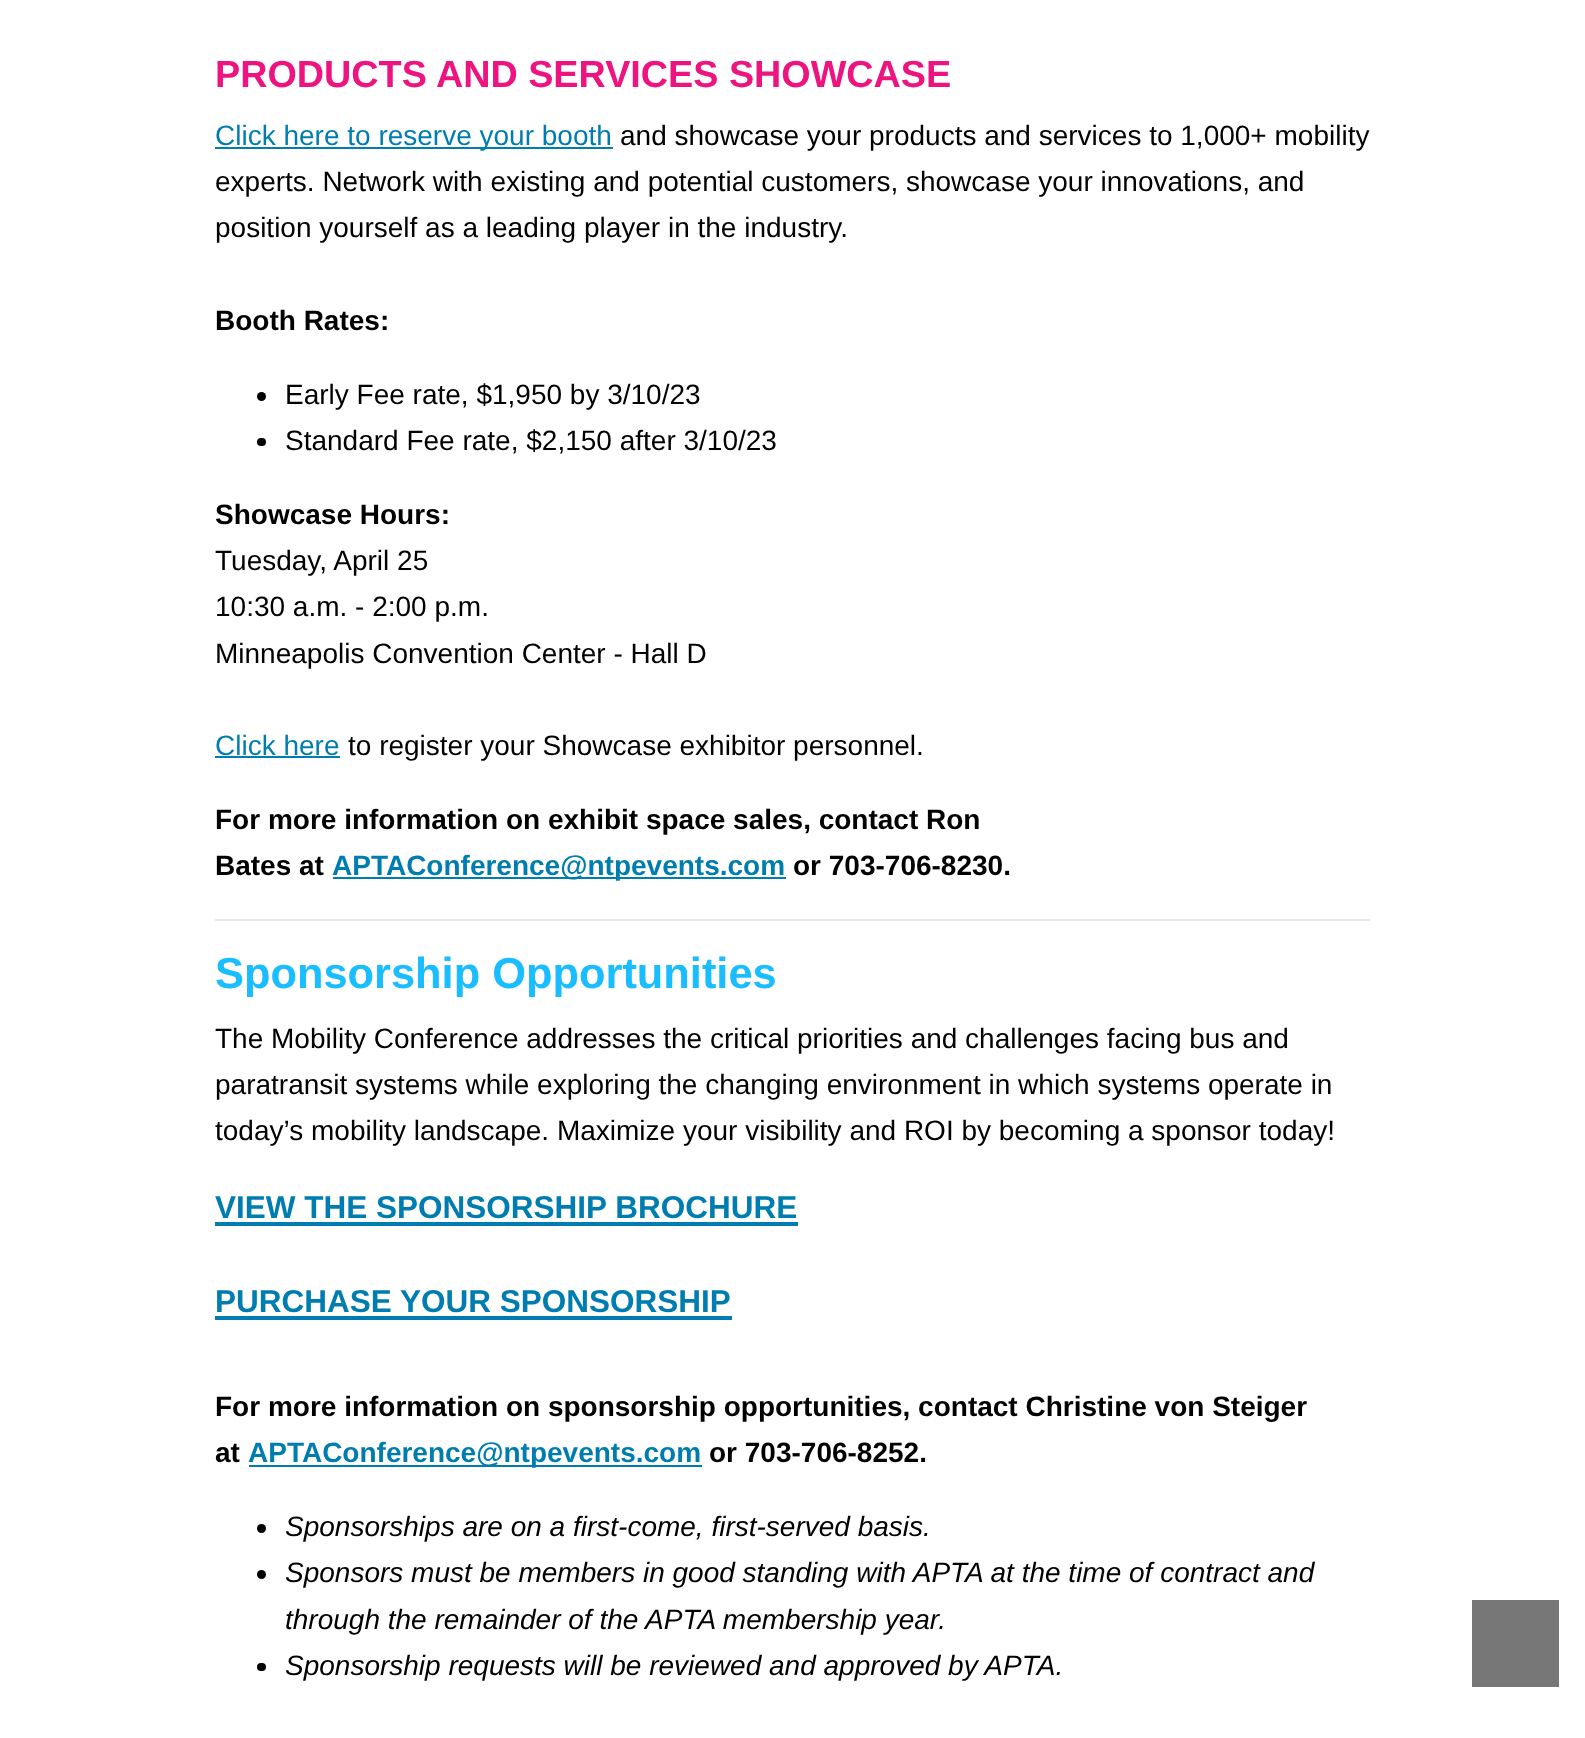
async function draw(canvas) {
	canvas.width = 1585;
	canvas.height = 1738;
	const c = canvas.getContext('2d');
	c.miterLimit = 4;
	c.fontKerning = 'normal';

	c.fillStyle = '#fff';
	c.fillRect(0, 0, 1585, 1738);
	c.font = 'bold 37.75px Liberation Sans';
	c.fillStyle = '#ed147f';
	c.fillText('PRODUCTS AND SERVICES SHOWCASE', 215, 87);
	c.fillStyle = '#007db0';
	c.fillRect(215, 147, 398, 2);
	c.font = '28px Liberation Sans';
	c.fillText('Click here to reserve your booth', 215, 145);
	c.fillStyle = '#000';
	for (const [text, x, y] of [
		['and showcase your products and services to 1,000+ mobility', 620, 145],
		['experts. Network with existing and potential customers, showcase your innovations, and', 215, 191],
		['position yourself as a leading player in the industry.', 215, 237],
	]) {
		c.fillText(text, x, y);
	}
	c.font = 'bold 28px Liberation Sans';
	c.fillText('Booth Rates:', 215, 330);
	c.beginPath();
	c.arc(261.5, 396.5, 4.5, 0, 2 * Math.PI);
	c.fill();
	c.font = '28px Liberation Sans';
	c.fillText('Early Fee rate, $1,950 by 3/10/23', 285, 404);
	c.beginPath();
	c.roundRect(257, 438, 9, 8, 4);
	c.fill();
	c.fillText('Standard Fee rate, $2,150 after 3/10/23', 285, 450);
	c.font = 'bold 28px Liberation Sans';
	c.fillText('Showcase Hours:', 215, 524);
	c.font = '28px Liberation Sans';
	for (const [text, x, y] of [
		['Tuesday, April 25', 215, 570],
		['10:30 a.m. - 2:00 p.m.', 215, 616],
		['Minneapolis Convention Center - Hall D', 215, 663],
	]) {
		c.fillText(text, x, y);
	}
	c.fillStyle = '#007db0';
	c.fillText('Click here', 215, 755);
	c.fillRect(215, 756, 125, 2);
	c.fillStyle = '#000';
	c.fillText('to register your Showcase exhibitor personnel.', 348, 755);
	c.font = 'bold 28px Liberation Sans';
	c.fillText('For more information on exhibit space sales, contact Ron', 215, 829);
	c.fillText('Bates at', 215, 875);
	c.fillStyle = '#007db0';
	c.fillRect(333, 877, 453, 2);
	c.fillText('APTAConference@ntpevents.com', 332, 875);
	c.fillStyle = '#000';
	c.fillText('or 703-706-8230.', 793, 875);
	c.fillStyle = '#e6e6e6';
	c.fillRect(215, 919, 1155, 2);
	c.font = 'bold 43.4px Liberation Sans';
	c.fillStyle = '#1abdff';
	c.fillText('Sponsorship Opportunities', 215, 988);
	c.font = '28px Liberation Sans';
	c.fillStyle = '#000';
	for (const [text, x, y] of [
		['The Mobility Conference addresses the critical priorities and challenges facing bus and', 215, 1048],
		['paratransit systems while exploring the changing environment in which systems operate in', 215, 1094],
		['today’s mobility landscape. Maximize your visibility and ROI by becoming a sponsor today!', 215, 1140],
	]) {
		c.fillText(text, x, y);
	}
	c.font = 'bold 31.5px Liberation Sans';
	c.fillStyle = '#007db0';
	c.fillText('VIEW THE SPONSORSHIP BROCHURE', 215, 1218);
	c.fillRect(215, 1222, 583, 4);
	c.fillText('PURCHASE YOUR SPONSORSHIP', 215, 1312);
	c.fillRect(215, 1316, 517, 4);
	c.font = 'bold 28px Liberation Sans';
	c.fillStyle = '#000';
	c.fillText('For more information on sponsorship opportunities, contact Christine von Steiger', 215, 1416);
	c.fillText('at', 215, 1462);
	c.fillStyle = '#007db0';
	c.fillRect(249, 1465, 453, 2);
	c.fillText('APTAConference@ntpevents.com', 248, 1462);
	c.fillStyle = '#000';
	c.fillText('or 703-706-8252.', 709, 1462);
	c.beginPath();
	c.arc(261.5, 1528.5, 4.5, 0, 2 * Math.PI);
	c.fill();
	c.font = 'italic 28px Liberation Sans';
	c.fillText('Sponsorships are on a first-come, first-served basis.', 285, 1536);
	c.beginPath();
	c.arc(261.5, 1574.5, 4.5, 0, 2 * Math.PI);
	c.fill();
	c.fillText('Sponsors must be members in good standing with APTA at the time of contract and', 285, 1582);
	c.fillText('through the remainder of the APTA membership year.', 285, 1629);
	c.beginPath();
	c.roundRect(257, 1663, 9, 8, 4);
	c.fill();
	c.fillText('Sponsorship requests will be reviewed and approved by APTA.', 285, 1675);
	c.fillStyle = '#777';
	c.fillRect(1472, 1600, 87, 87);
}

draw(document.querySelector('canvas'));
